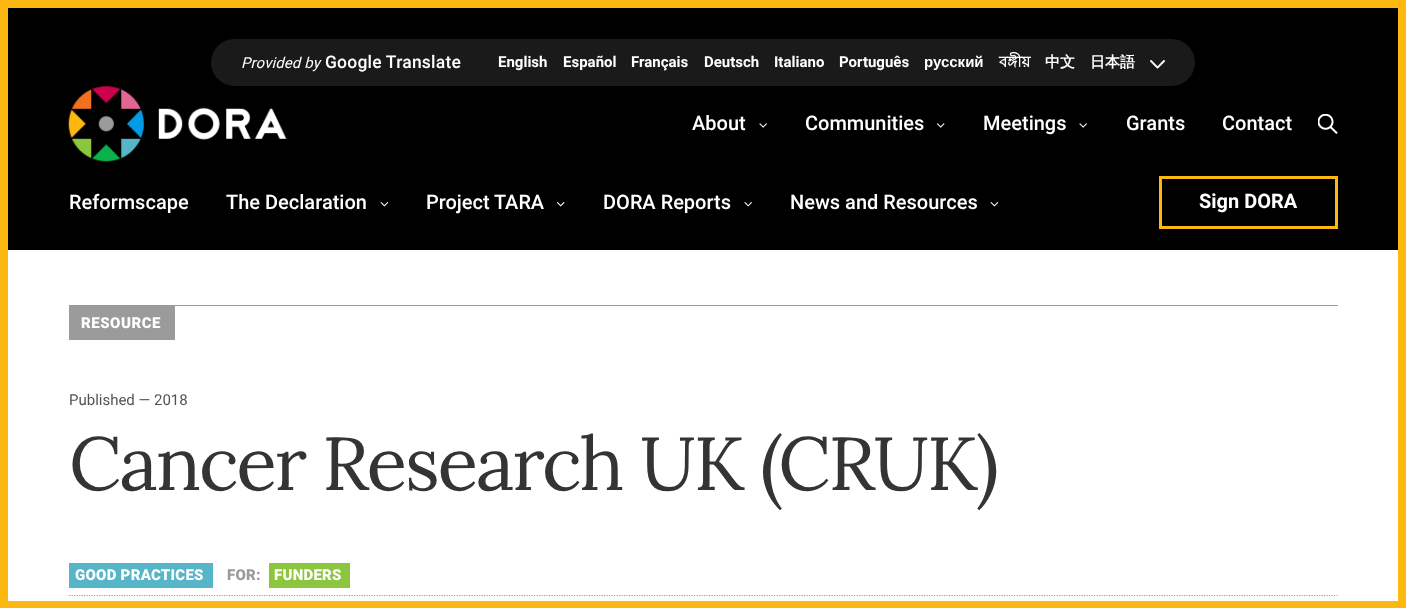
async function draw(canvas) {
	canvas.width = 1406;
	canvas.height = 608;
	const c = canvas.getContext('2d');
	c.miterLimit = 4;
	c.fontKerning = 'normal';
	async function loadImage(src) {
		const img = new Image();
		img.src = src;
		await img.decode();
		return img;
	}

	c.fillStyle = '#fff';
	c.fillRect(0, 0, 1406, 608);
	c.fillStyle = '#000';
	c.fillRect(8, 8, 1390, 242);
	c.fillStyle = '#1a1a1a';
	c.beginPath();
	c.roundRect(211, 39, 984, 47, 23.5);
	c.fill();
	c.drawImage(await loadImage('img1.png'), 1150, 60, 15, 9);
	c.drawImage(await loadImage('img2.png'), 68, 86, 219, 76);
	c.drawImage(await loadImage('img3.png'), 759, 123, 8, 5);
	c.drawImage(await loadImage('img4.png'), 936, 123, 9, 5);
	c.drawImage(await loadImage('img3.png'), 1079, 123, 8, 5);
	c.drawImage(await loadImage('img5.png'), 1318, 114, 20, 20);
	c.drawImage(await loadImage('img6.png'), 380, 202, 9, 5);
	c.drawImage(await loadImage('img7.png'), 556, 202, 9, 5);
	c.drawImage(await loadImage('img8.png'), 744, 202, 8, 5);
	c.drawImage(await loadImage('img6.png'), 990, 202, 9, 5);
	c.strokeStyle = '#fcb711';
	c.lineWidth = 3;
	c.strokeRect(1160.5, 177.5, 176, 50);
	c.fillStyle = '#9b9b9b';
	c.fillRect(69, 305, 1269, 1);
	c.fillRect(69, 306, 106, 34);
	c.beginPath();
	c.moveTo(69, 595.5);
	c.lineTo(1337.5, 595.5);
	c.strokeStyle = '#9b9b9b';
	c.lineWidth = 1.2;
	c.setLineDash([1.25, 1.25]);
	c.stroke();
	c.fillStyle = '#56b6c7';
	c.fillRect(69, 563, 144, 25);
	c.fillStyle = '#8cc63f';
	c.fillRect(269, 563, 81, 25);
	c.strokeStyle = '#fcb711';
	c.lineWidth = 8;
	c.setLineDash([]);
	c.strokeRect(4, 4, 1398, 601);
	c.letterSpacing = '0.1px';
	c.font = 'italic 15px Roboto';
	c.fillStyle = '#fff';
	c.fillText('Provided by', 241, 68);
	c.letterSpacing = '0.2px';
	c.font = '500 17.5px Roboto';
	c.fillText('Google Translate', 325, 68);
	c.letterSpacing = '0px';
	c.font = 'bold 15px Roboto';
	for (const [text, x, y] of [
		['English', 498, 67],
		['Español', 563, 67],
		['Français', 631, 67],
		['Deutsch', 704, 67],
		['Italiano', 774, 67],
		['Português', 839, 67],
	]) {
		c.fillText(text, x, y);
	}
	c.font = 'bold 15px Liberation Sans';
	c.fillText('русский', 924, 67);
	c.font = 'bold 15px Lohit Bengali';
	c.fillText('বঙ্গীয়', 999, 67);
	c.font = 'bold 15px WenQuanYi Zen Hei';
	c.fillText('中文', 1045, 67);
	c.fillText('日本語', 1090, 67);
	c.font = '500 20px Roboto';
	for (const [text, x, y] of [
		['About', 692, 130],
		['Communities', 805, 130],
		['Meetings', 983, 130],
		['Grants', 1126, 130],
		['Contact', 1222, 130],
		['Reformscape', 69, 209],
		['The Declaration', 226, 209],
		['Project TARA', 426, 209],
		['DORA Reports', 603, 209],
		['News and Resources', 790, 209],
	]) {
		c.fillText(text, x, y);
	}
	c.font = 'bold 20px Roboto';
	c.fillText('Sign DORA', 1199, 208);
	c.letterSpacing = '0.5px';
	c.font = '900 15px Roboto';
	c.fillText('RESOURCE', 81, 328);
	c.letterSpacing = '0px';
	c.font = '15px Roboto';
	c.fillStyle = '#535353';
	c.fillText('Published — 2018', 69, 405);
	c.letterSpacing = '-2.25px';
	c.font = '75px Lora';
	c.fillStyle = '#343434';
	c.fillText('Cancer Research UK (CRUK)', 69, 490);
	c.letterSpacing = '0.25px';
	c.font = '900 15px Roboto';
	c.fillStyle = '#fff';
	c.fillText('GOOD PRACTICES', 75, 580);
	c.fillStyle = '#9b9b9b';
	c.fillText('FOR:', 227, 580);
	c.fillStyle = '#fff';
	c.fillText('FUNDERS', 274, 580);
}

draw(document.querySelector('canvas'));
